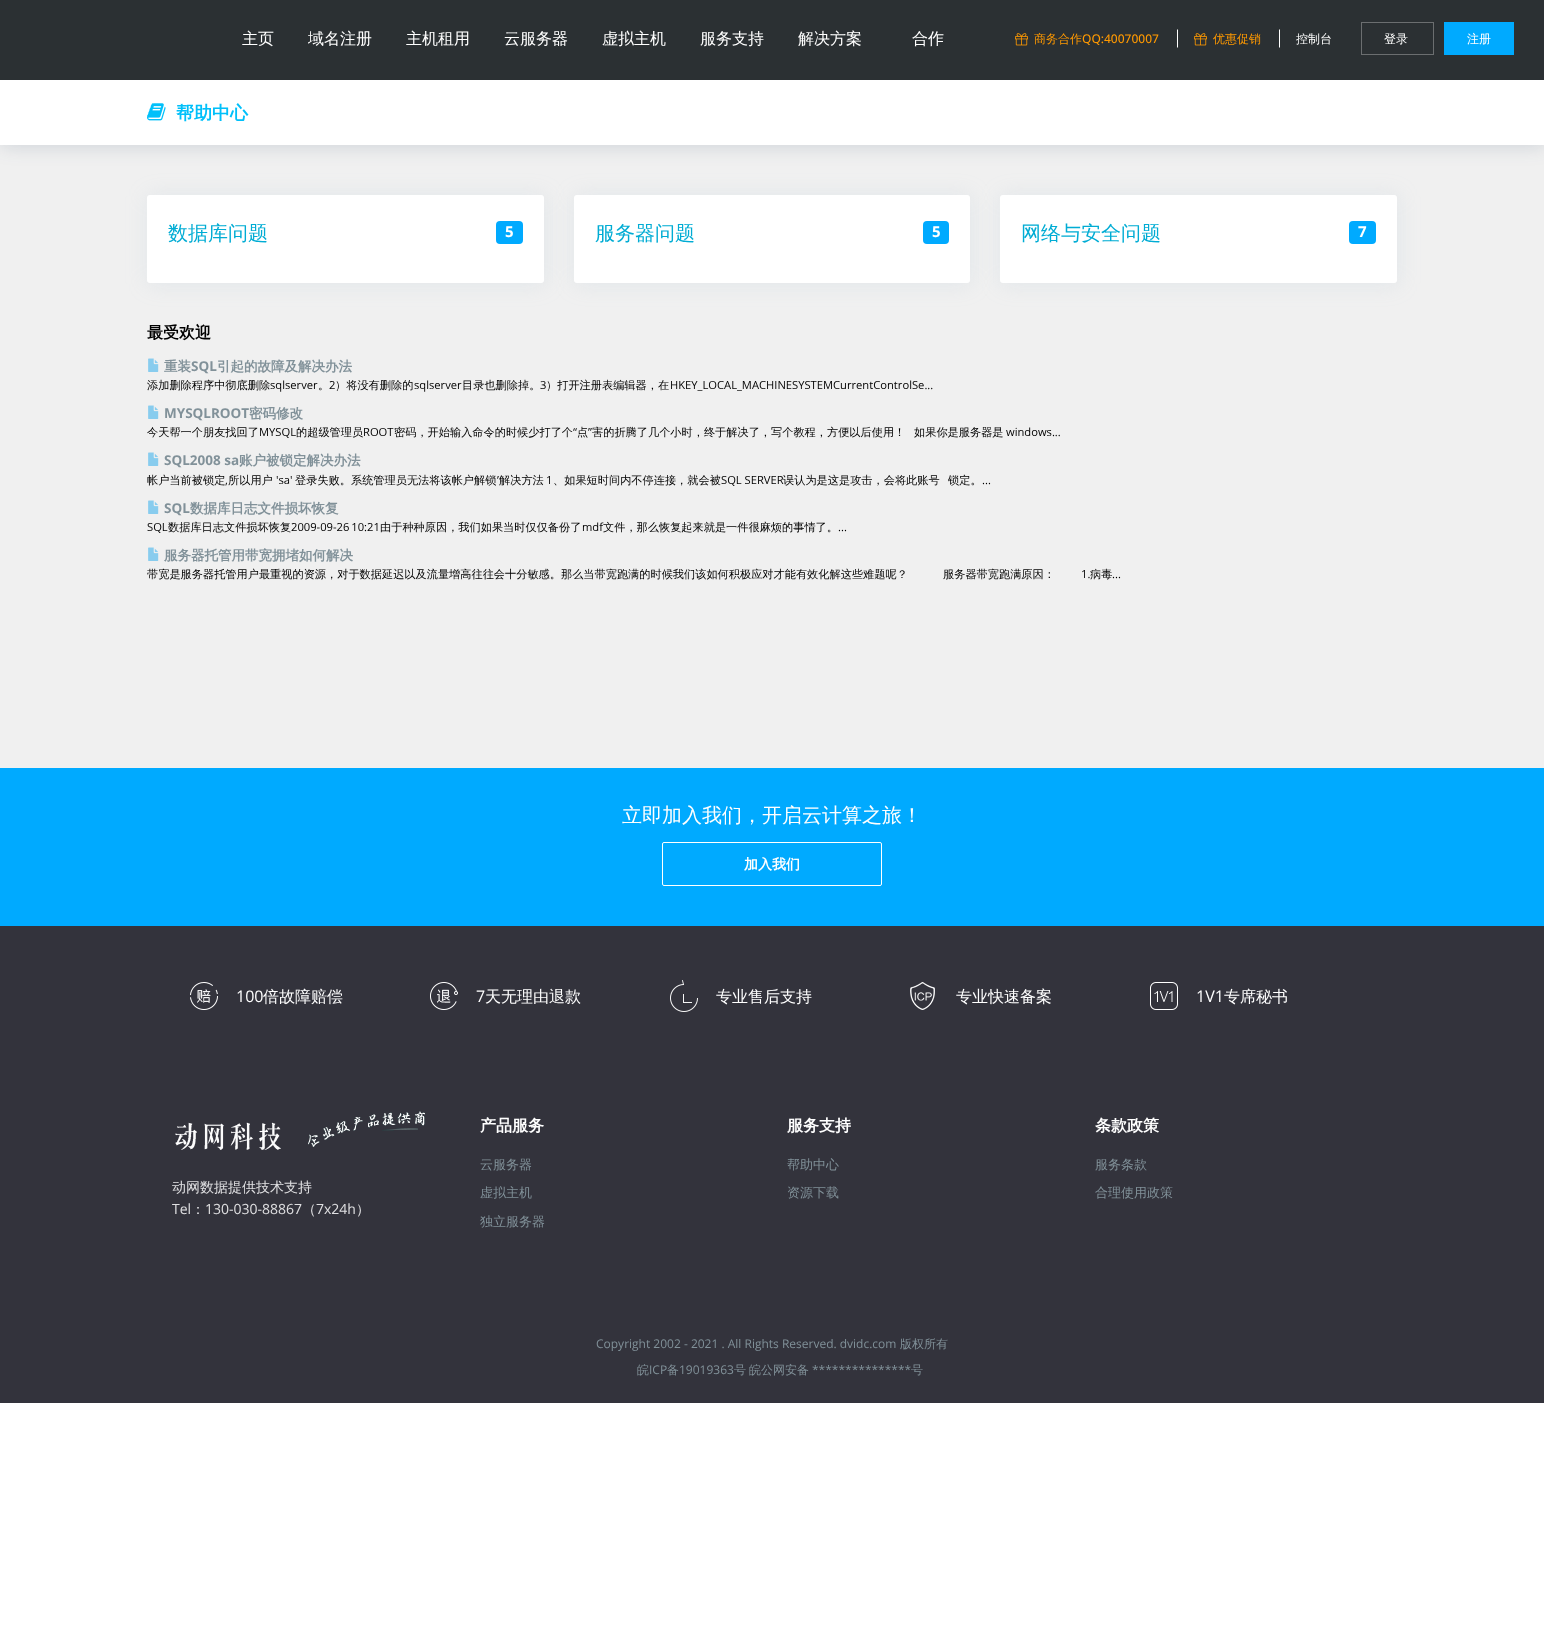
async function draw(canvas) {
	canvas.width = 1544;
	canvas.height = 1633;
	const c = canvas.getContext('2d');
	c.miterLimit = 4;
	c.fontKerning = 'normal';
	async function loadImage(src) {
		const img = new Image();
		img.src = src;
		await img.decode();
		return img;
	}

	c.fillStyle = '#fff';
	c.fillRect(0, 0, 1544, 1633);
	c.fillStyle = '#f0f0f0';
	c.fillRect(0, 145, 1544, 623);
	c.fillStyle = '#1c3d5e2b';
	c.filter = 'blur(9.5px)';
	c.beginPath();
	c.rect(1, 81, 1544, 65);
	c.fill();
	c.filter = 'none';
	c.fillStyle = '#2b3033';
	c.fillRect(0, 0, 1544, 80);
	c.font = '500 16px WenQuanYi Zen Hei';
	c.fillStyle = '#fff';
	for (const [text, x, y] of [
		['主页', 242, 44],
		['域名注册', 308, 44],
		['主机租用', 406, 44],
		['云服务器', 504, 44],
		['虚拟主机', 602, 44],
		['服务支持', 700, 44],
		['解决方案', 798, 44],
		['合作', 912, 44],
	]) {
		c.fillText(text, x, y);
	}
	c.beginPath();
	c.moveTo(1178, 29);
	c.lineTo(1178, 48);
	c.lineTo(1177, 47);
	c.lineTo(1177, 30);
	c.closePath();
	c.fill();
	c.drawImage(await loadImage('img1.png'), 1015, 33, 13, 13);
	c.font = '500 12px WenQuanYi Zen Hei';
	c.fillStyle = '#f90';
	c.fillText('商务合作', 1034, 43);
	c.font = '500 12px Open Sans';
	c.fillText('QQ:40070007', 1082, 43);
	c.fillStyle = '#fff';
	c.beginPath();
	c.moveTo(1280, 29);
	c.lineTo(1280, 48);
	c.lineTo(1279, 47);
	c.lineTo(1279, 30);
	c.closePath();
	c.fill();
	c.drawImage(await loadImage('img1.png'), 1194, 33, 13, 13);
	c.font = '500 12px WenQuanYi Zen Hei';
	c.fillStyle = '#f90';
	c.fillText('优惠促销', 1213, 43);
	c.fillStyle = '#fff';
	c.fillText('控制台', 1296, 43);
	c.strokeStyle = '#6b6e70';
	c.strokeRect(1361.5, 22.5, 72, 32);
	c.fillText('登录', 1384, 43);
	c.fillStyle = '#0af';
	c.fillRect(1444, 22, 70, 33);
	c.fillStyle = '#fff';
	c.fillText('注册', 1467, 43);
	c.fillRect(0, 80, 1544, 65);
	c.drawImage(await loadImage('img2.png'), 147, 103, 19, 18);
	c.font = 'bold 18px WenQuanYi Zen Hei';
	c.fillStyle = '#00c0fa';
	c.fillText('帮助中心', 176, 119);
	c.fillStyle = '#9db8d130';
	c.filter = 'blur(11px)';
	c.beginPath();
	c.roundRect(148, 196, 397, 88, 3);
	c.fill();
	c.filter = 'none';
	c.fillStyle = '#fff';
	c.beginPath();
	c.roundRect(147, 195, 397, 88, 3);
	c.fill();
	c.font = '500 20px WenQuanYi Zen Hei';
	c.fillStyle = '#00acd4';
	c.fillText('数据库问题', 168, 240);
	c.fillStyle = '#0af';
	c.beginPath();
	c.roundRect(496, 221, 27, 23, 4);
	c.fill();
	c.font = 'bold 15px Open Sans';
	c.fillStyle = '#fff';
	c.fillText('5', 505, 237);
	c.fillStyle = '#9db8d130';
	c.filter = 'blur(11px)';
	c.beginPath();
	c.roundRect(575, 196, 396, 88, 3);
	c.fill();
	c.filter = 'none';
	c.fillStyle = '#fff';
	c.beginPath();
	c.roundRect(574, 195, 396, 88, 3);
	c.fill();
	c.font = '500 20px WenQuanYi Zen Hei';
	c.fillStyle = '#00acd4';
	c.fillText('服务器问题', 595, 240);
	c.fillStyle = '#0af';
	c.beginPath();
	c.roundRect(923, 221, 26, 23, 4);
	c.fill();
	c.font = 'bold 15px Open Sans';
	c.fillStyle = '#fff';
	c.fillText('5', 932, 237);
	c.fillStyle = '#9db8d130';
	c.filter = 'blur(11px)';
	c.beginPath();
	c.roundRect(1001, 196, 397, 88, 3);
	c.fill();
	c.filter = 'none';
	c.fillStyle = '#fff';
	c.beginPath();
	c.roundRect(1000, 195, 397, 88, 3);
	c.fill();
	c.font = '500 20px WenQuanYi Zen Hei';
	c.fillStyle = '#00acd4';
	c.fillText('网络与安全问题', 1021, 240);
	c.fillStyle = '#0af';
	c.beginPath();
	c.roundRect(1349, 221, 27, 23, 4);
	c.fill();
	c.font = 'bold 15px Open Sans';
	c.fillStyle = '#fff';
	c.fillText('7', 1358, 237);
	c.font = 'bold 16px WenQuanYi Zen Hei';
	c.fillStyle = '#000';
	c.fillText('最受欢迎', 147, 338);
	c.drawImage(await loadImage('img3.png'), 148, 358, 11, 14);
	c.font = 'bold 13.5px WenQuanYi Zen Hei';
	c.fillStyle = '#819199';
	c.fillText('重装', 164, 371);
	c.font = 'bold 13.5px Open Sans';
	c.fillText('SQL', 191, 371);
	c.font = 'bold 13.5px WenQuanYi Zen Hei';
	c.fillText('引起的故障及解决办法', 217, 371);
	c.font = '500 11.2px WenQuanYi Zen Hei';
	c.fillStyle = '#000';
	c.fillText('添加删除程序中彻底删除', 147, 389);
	c.font = '11.2px Open Sans';
	c.fillText('sqlserver', 270, 389);
	c.font = '500 11.2px WenQuanYi Zen Hei';
	c.fillText('。', 318, 389);
	c.font = '11.2px Open Sans';
	c.fillText('2', 329, 389);
	c.font = '500 11.2px WenQuanYi Zen Hei';
	c.fillText('）将没有删除的', 335, 389);
	c.font = '11.2px Open Sans';
	c.fillText('sqlserver', 414, 389);
	c.font = '500 11.2px WenQuanYi Zen Hei';
	c.fillText('目录也删除掉。', 462, 389);
	c.font = '11.2px Open Sans';
	c.fillText('3', 540, 389);
	c.font = '500 11.2px WenQuanYi Zen Hei';
	c.fillText('）打开注册表编辑器，在', 546, 389);
	c.font = '11.2px Open Sans';
	c.fillText('HKEY_LOCAL_MACHINESYSTEMCurrentControlSe...', 670, 389);
	c.drawImage(await loadImage('img3.png'), 148, 405, 11, 14);
	c.font = 'bold 13.5px Open Sans';
	c.fillStyle = '#819199';
	c.fillText('MYSQLROOT', 164, 418);
	c.font = 'bold 13.5px WenQuanYi Zen Hei';
	c.fillText('密码修改', 249, 418);
	c.font = '500 11.2px WenQuanYi Zen Hei';
	c.fillStyle = '#000';
	c.fillText('今天帮一个朋友找回了', 147, 436);
	c.font = '11.2px Open Sans';
	c.fillText('MYSQL', 259, 436);
	c.font = '500 11.2px WenQuanYi Zen Hei';
	c.fillText('的超级管理员', 296, 436);
	c.font = '11.2px Open Sans';
	c.fillText('ROOT', 363, 436);
	c.font = '500 11.2px WenQuanYi Zen Hei';
	c.fillText('密码，开始输入命令的时候少打了个', 394, 436);
	c.font = '11.2px Open Sans';
	c.fillText('“', 573, 436);
	c.font = '500 11.2px WenQuanYi Zen Hei';
	c.fillText('点', 577, 436);
	c.font = '11.2px Open Sans';
	c.fillText('”', 588, 436);
	c.font = '500 11.2px WenQuanYi Zen Hei';
	c.fillText('害的折腾了几个小时，终于解决了，写个教程，方便以后使用！', 592, 436);
	c.fillText('如果你是服务器是', 914, 436);
	c.font = '11.2px Open Sans';
	c.fillText('windows...', 1006, 436);
	c.drawImage(await loadImage('img3.png'), 148, 452, 11, 14);
	c.font = 'bold 13.5px Open Sans';
	c.fillStyle = '#819199';
	c.fillText('SQL2008 sa', 164, 465);
	c.font = 'bold 13.5px WenQuanYi Zen Hei';
	c.fillText('账户被锁定解决办法', 239, 465);
	c.font = '500 11.2px WenQuanYi Zen Hei';
	c.fillStyle = '#000';
	c.fillText('帐户当前被锁定', 147, 484);
	c.font = '11.2px Open Sans';
	c.fillText(',', 225, 484);
	c.font = '500 11.2px WenQuanYi Zen Hei';
	c.fillText('所以用户', 228, 484);
	c.font = '11.2px Open Sans';
	c.fillText('\'sa\'', 276, 484);
	c.font = '500 11.2px WenQuanYi Zen Hei';
	c.fillText('登录失败。系统管理员无法将该帐户解锁', 295, 484);
	c.font = '11.2px Open Sans';
	c.fillText('’', 497, 484);
	c.font = '500 11.2px WenQuanYi Zen Hei';
	c.fillText('解决方法', 499, 484);
	c.font = '11.2px Open Sans';
	c.fillText('1', 546, 484);
	c.font = '500 11.2px WenQuanYi Zen Hei';
	c.fillText('、如果短时间内不停连接，就会被', 553, 484);
	c.font = '11.2px Open Sans';
	c.fillText('SQL SERVER', 721, 484);
	c.font = '500 11.2px WenQuanYi Zen Hei';
	c.fillText('误认为是这是攻击，会将此账号', 783, 484);
	c.fillText('锁定。', 948, 484);
	c.font = '11.2px Open Sans';
	c.fillText('...', 982, 484);
	c.drawImage(await loadImage('img3.png'), 148, 500, 11, 14);
	c.font = 'bold 13.5px Open Sans';
	c.fillStyle = '#819199';
	c.fillText('SQL', 164, 513);
	c.font = 'bold 13.5px WenQuanYi Zen Hei';
	c.fillText('数据库日志文件损坏恢复', 190, 513);
	c.font = '11.2px Open Sans';
	c.fillStyle = '#000';
	c.fillText('SQL', 147, 531);
	c.font = '500 11.2px WenQuanYi Zen Hei';
	c.fillText('数据库日志文件损坏恢复', 168, 531);
	c.wordSpacing = '-1px';
	c.font = '11.2px Open Sans';
	c.fillText('2009-09-26 10:21', 291, 531);
	c.wordSpacing = '0px';
	c.font = '500 11.2px WenQuanYi Zen Hei';
	c.fillText('由于种种原因，我们如果当时仅仅备份了', 380, 531);
	c.font = '11.2px Open Sans';
	c.fillText('mdf', 582, 531);
	c.font = '500 11.2px WenQuanYi Zen Hei';
	c.fillText('文件，那么恢复起来就是一件很麻烦的事情了。', 603, 531);
	c.font = '11.2px Open Sans';
	c.fillText('...', 838, 531);
	c.drawImage(await loadImage('img3.png'), 148, 547, 11, 14);
	c.font = 'bold 13.5px WenQuanYi Zen Hei';
	c.fillStyle = '#819199';
	c.fillText('服务器托管用带宽拥堵如何解决', 164, 560);
	c.font = '500 11.2px WenQuanYi Zen Hei';
	c.fillStyle = '#000';
	c.fillText('带宽是服务器托管用户最重视的资源，对于数据延迟以及流量增高往往会十分敏感。那么当带宽跑满的时候我们该如何积极应对才能有效化解这些难题呢？', 147, 578);
	c.fillText('服务器带宽跑满原因：', 943, 578);
	c.font = '11.2px Open Sans';
	c.fillText('1.', 1081, 578);
	c.font = '500 11.2px WenQuanYi Zen Hei';
	c.fillText('病毒', 1090, 578);
	c.font = '11.2px Open Sans';
	c.fillText('...', 1112, 578);
	c.fillStyle = '#0af';
	c.fillRect(0, 768, 1544, 158);
	c.font = '500 20px WenQuanYi Zen Hei';
	c.fillStyle = '#fff';
	c.fillText('立即加入我们，开启云计算之旅！', 622, 822);
	c.beginPath();
	c.roundRect(662.5, 842.5, 219, 43, 1.5);
	c.strokeStyle = '#fff';
	c.stroke();
	c.font = 'bold 14px WenQuanYi Zen Hei';
	c.fillText('加入我们', 744, 869);
	c.fillStyle = '#33333c';
	c.fillRect(0, 926, 1544, 477);
	c.drawImage(await loadImage('img4.png'), 190, 982, 28, 28);
	c.font = '16px Open Sans';
	c.fillStyle = '#fff';
	c.fillText('100', 236, 1002);
	c.font = '500 16px WenQuanYi Zen Hei';
	c.fillText('倍故障赔偿', 263, 1002);
	c.drawImage(await loadImage('img5.png'), 430, 982, 28, 28);
	c.font = '16px Open Sans';
	c.fillText('7', 476, 1002);
	c.font = '500 16px WenQuanYi Zen Hei';
	c.fillText('天无理由退款', 485, 1002);
	c.drawImage(await loadImage('img6.png'), 670, 980, 28, 32);
	c.fillText('专业售后支持', 716, 1002);
	c.drawImage(await loadImage('img7.png'), 910, 982, 25, 28);
	c.fillText('专业快速备案', 956, 1002);
	c.drawImage(await loadImage('img8.png'), 1150, 982, 28, 28);
	c.font = '16px Open Sans';
	c.fillText('1V1', 1196, 1002);
	c.font = '500 16px WenQuanYi Zen Hei';
	c.fillText('专席秘书', 1224, 1002);
	c.drawImage(await loadImage('img9.png'), 175, 1122, 106, 28);
	c.drawImage(await loadImage('img10.png'), 308, 1111, 117, 36);
	c.font = '500 14px WenQuanYi Zen Hei';
	c.fillStyle = '#e0e0e2';
	c.fillText('动网数据提供技术支持', 172, 1192);
	c.font = '14px Open Sans';
	c.fillText('Tel', 172, 1214);
	c.font = '500 14px WenQuanYi Zen Hei';
	c.fillText('：', 191, 1214);
	c.font = '14px Open Sans';
	c.fillText('130-030-88867', 205, 1214);
	c.font = '500 14px WenQuanYi Zen Hei';
	c.fillText('（', 302, 1214);
	c.font = '14px Open Sans';
	c.fillText('7x24h', 316, 1214);
	c.font = '500 14px WenQuanYi Zen Hei';
	c.fillText('）', 356, 1214);
	c.font = 'bold 16px WenQuanYi Zen Hei';
	c.fillStyle = '#fff';
	c.fillText('产品服务', 480, 1131);
	c.font = '500 13px WenQuanYi Zen Hei';
	c.fillStyle = '#819199';
	for (const [text, x, y] of [
		['云服务器', 480, 1169],
		['虚拟主机', 480, 1197],
		['独立服务器', 480, 1226],
	]) {
		c.fillText(text, x, y);
	}
	c.font = 'bold 16px WenQuanYi Zen Hei';
	c.fillStyle = '#fff';
	c.fillText('服务支持', 787, 1131);
	c.font = '500 13px WenQuanYi Zen Hei';
	c.fillStyle = '#819199';
	c.fillText('帮助中心', 787, 1169);
	c.fillText('资源下载', 787, 1197);
	c.font = 'bold 16px WenQuanYi Zen Hei';
	c.fillStyle = '#fff';
	c.fillText('条款政策', 1095, 1131);
	c.font = '500 13px WenQuanYi Zen Hei';
	c.fillStyle = '#819199';
	c.fillText('服务条款', 1095, 1169);
	c.fillText('合理使用政策', 1095, 1197);
	c.font = '12px Open Sans';
	c.fillText('Copyright 2002 - 2021 . All Rights Reserved. dvidc.com', 596, 1348);
	c.font = '500 12px WenQuanYi Zen Hei';
	c.fillText('版权所有', 900, 1348);
	c.fillText('皖', 637, 1374);
	c.font = '12px Open Sans';
	c.fillText('ICP', 649, 1374);
	c.font = '500 12px WenQuanYi Zen Hei';
	c.fillText('备', 667, 1374);
	c.font = '12px Open Sans';
	c.fillText('19019363', 679, 1374);
	c.font = '500 12px WenQuanYi Zen Hei';
	c.fillText('号', 734, 1374);
	c.fillText('皖公网安备', 749, 1374);
	c.font = '12px Open Sans';
	c.fillText('***************', 812, 1374);
	c.font = '500 12px WenQuanYi Zen Hei';
	c.fillText('号', 911, 1374);
}

draw(document.querySelector('canvas'));
